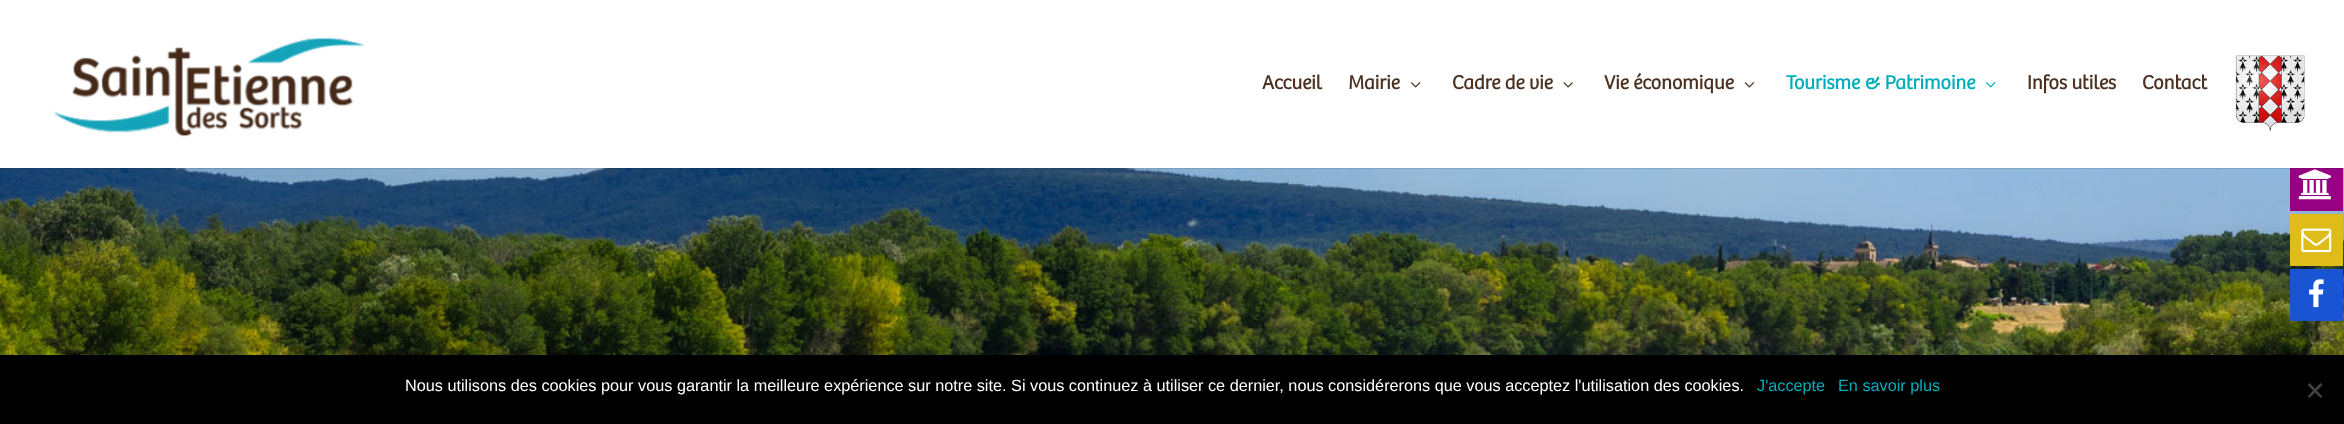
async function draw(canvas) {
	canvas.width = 2344;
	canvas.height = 424;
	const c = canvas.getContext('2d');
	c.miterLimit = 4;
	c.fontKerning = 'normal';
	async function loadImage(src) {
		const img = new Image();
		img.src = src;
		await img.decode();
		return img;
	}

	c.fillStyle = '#fff';
	c.fillRect(0, 0, 2344, 424);
	c.drawImage(await loadImage('img7.png'), 0, 168, 2344, 187);
	c.fillStyle = '#960082';
	c.fillRect(2290, 168, 53, 43);
	c.fillStyle = '#0000001a';
	c.fillRect(0, 168, 2344, 1);
	c.drawImage(await loadImage('img1.png'), 53, 37, 312, 100);
	c.font = 'bold 20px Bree';
	c.fillStyle = '#4b3121';
	c.fillText('Accueil', 1262, 89);
	c.fillText('Mairie', 1348, 89);
	c.drawImage(await loadImage('img2.png'), 1411, 82, 10, 6);
	c.fillText('Cadre de vie', 1452, 89);
	c.drawImage(await loadImage('img3.png'), 1563, 82, 10, 6);
	c.fillText('Vie économique', 1604, 89);
	c.drawImage(await loadImage('img4.png'), 1744, 82, 10, 6);
	c.fillStyle = '#00adbb';
	c.fillText('Tourisme & Patrimoine', 1786, 89);
	c.drawImage(await loadImage('img5.png'), 1986, 82, 10, 6);
	c.fillStyle = '#4b3121';
	c.fillText('Infos utiles', 2027, 89);
	c.fillText('Contact', 2142, 89);
	c.drawImage(await loadImage('img6.png'), 2235, 55, 70, 76);
	c.drawImage(await loadImage('img8.png'), 2298, 169, 33, 31);
	c.fillStyle = '#e0bc1a';
	c.fillRect(2290, 214, 53, 52);
	c.drawImage(await loadImage('img9.png'), 2301, 228, 31, 25);
	c.fillStyle = '#1954d3';
	c.fillRect(2290, 269, 53, 52);
	c.drawImage(await loadImage('img10.png'), 2309, 279, 15, 29);
	c.fillStyle = '#000';
	c.fillRect(0, 355, 2344, 69);
	c.font = '16.25px Liberation Sans';
	c.fillStyle = '#fff';
	c.fillText('Nous utilisons des cookies pour vous garantir la meilleure expérience sur notre site. Si vous continuez à utiliser ce dernier, nous considérerons que vous acceptez l\'utilisation des cookies.', 405, 391);
	c.fillStyle = '#00adbb';
	c.fillText('J\'accepte', 1757, 391);
	c.fillText('En savoir plus', 1838, 391);
	c.fillStyle = '#404040';
	c.beginPath();
	c.moveTo(2320.5, 383);
	c.lineTo(2322.5, 385);
	c.lineTo(2309.5, 398);
	c.lineTo(2307.5, 396.5);
	c.closePath();
	c.fill();
	c.beginPath();
	c.moveTo(2307.5, 385);
	c.lineTo(2309.5, 383);
	c.lineTo(2322.5, 396.5);
	c.lineTo(2320.5, 398);
	c.closePath();
	c.fill();
}

draw(document.querySelector('canvas'));
